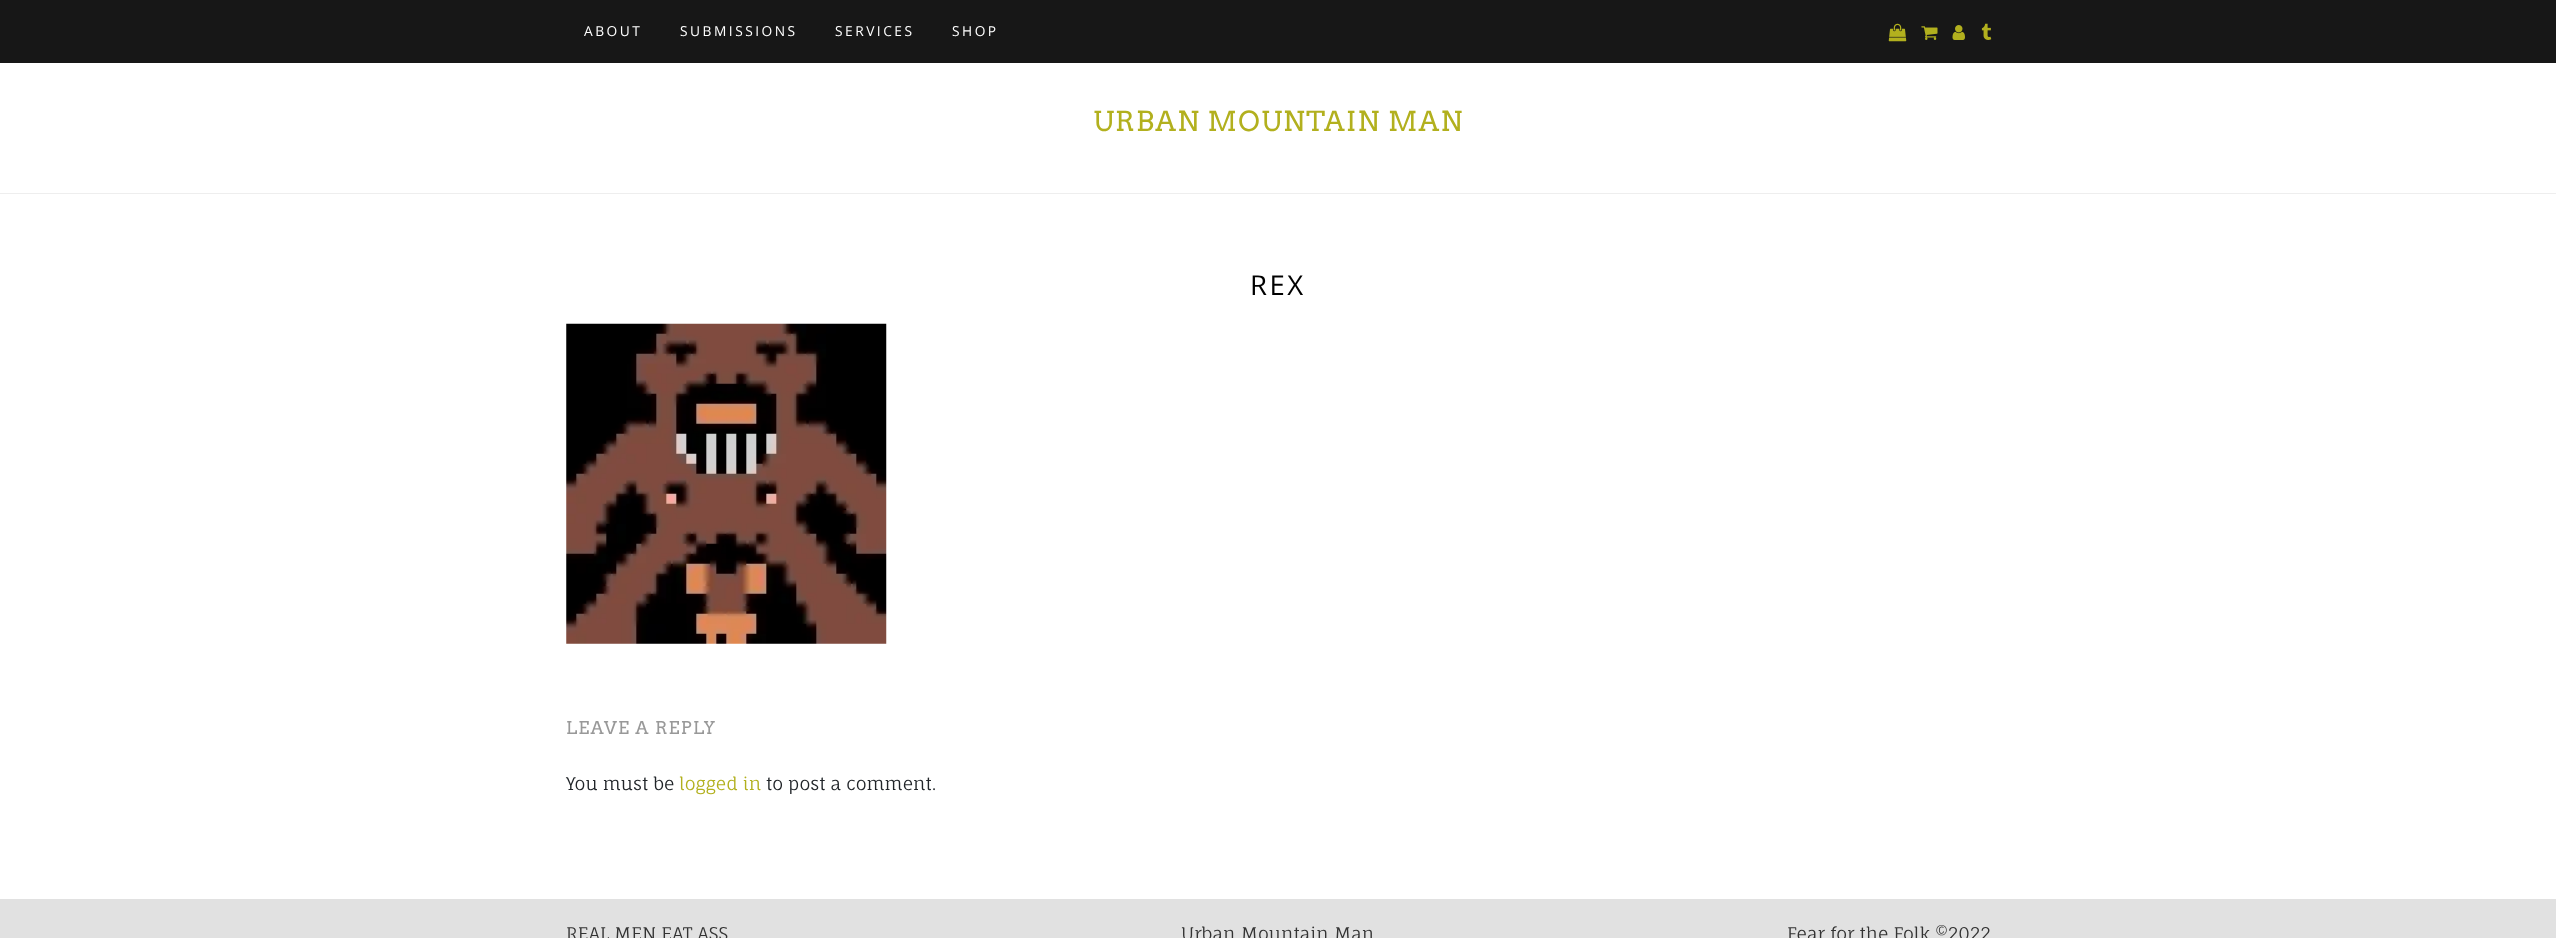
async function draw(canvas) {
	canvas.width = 2556;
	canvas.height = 938;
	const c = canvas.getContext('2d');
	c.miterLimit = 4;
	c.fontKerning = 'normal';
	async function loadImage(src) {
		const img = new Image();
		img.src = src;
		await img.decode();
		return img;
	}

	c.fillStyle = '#fff';
	c.fillRect(0, 0, 2556, 938);
	c.fillStyle = '#171717';
	c.fillRect(0, 0, 2556, 63);
	c.letterSpacing = '2.5px';
	c.font = '13.75px Open Sans';
	c.fillStyle = '#fff';
	for (const [text, x, y] of [
		['ABOUT', 584, 36],
		['SUBMISSIONS', 680, 36],
		['SERVICES', 835, 36],
		['SHOP', 952, 36],
	]) {
		c.fillText(text, x, y);
	}
	c.drawImage(await loadImage('img1.png'), 1888, 23, 19, 19);
	c.drawImage(await loadImage('img2.png'), 1921, 26, 17, 14);
	c.drawImage(await loadImage('img3.png'), 1952, 25, 13, 15);
	c.drawImage(await loadImage('img4.png'), 1981, 23, 11, 17);
	c.fillStyle = '#eee';
	c.fillRect(0, 193, 2556, 1);
	c.letterSpacing = '1.25px';
	c.font = '27.5px Arvo';
	c.fillStyle = '#b2b01e';
	c.fillText('URBAN MOUNTAIN MAN', 1093, 131);
	c.letterSpacing = '2.5px';
	c.font = '27.5px Open Sans';
	c.fillStyle = '#000';
	c.fillText('REX', 1250, 295);
	c.drawImage(await loadImage('img5.png'), 566, 323, 321, 321);
	c.letterSpacing = '1.25px';
	c.font = '17.5px Arvo';
	c.fillStyle = '#999';
	c.fillText('LEAVE A REPLY', 566, 734);
	c.letterSpacing = '0px';
	c.font = '17.5px Fauna One';
	c.fillStyle = '#212529';
	c.fillText('You must be', 566, 790);
	c.fillStyle = '#b2b01e';
	c.fillText('logged in', 679, 790);
	c.fillStyle = '#212529';
	c.fillText('to post a comment.', 766, 790);
	c.fillStyle = '#e1e1e1';
	c.fillRect(0, 899, 2556, 39);
	c.fillStyle = '#333';
	for (const [text, x, y] of [
		['REAL MEN EAT ASS', 566, 940],
		['Urban Mountain Man', 1181, 940],
		['Fear for the Folk ©2022', 1787, 940],
	]) {
		c.fillText(text, x, y);
	}
}

draw(document.querySelector('canvas'));
